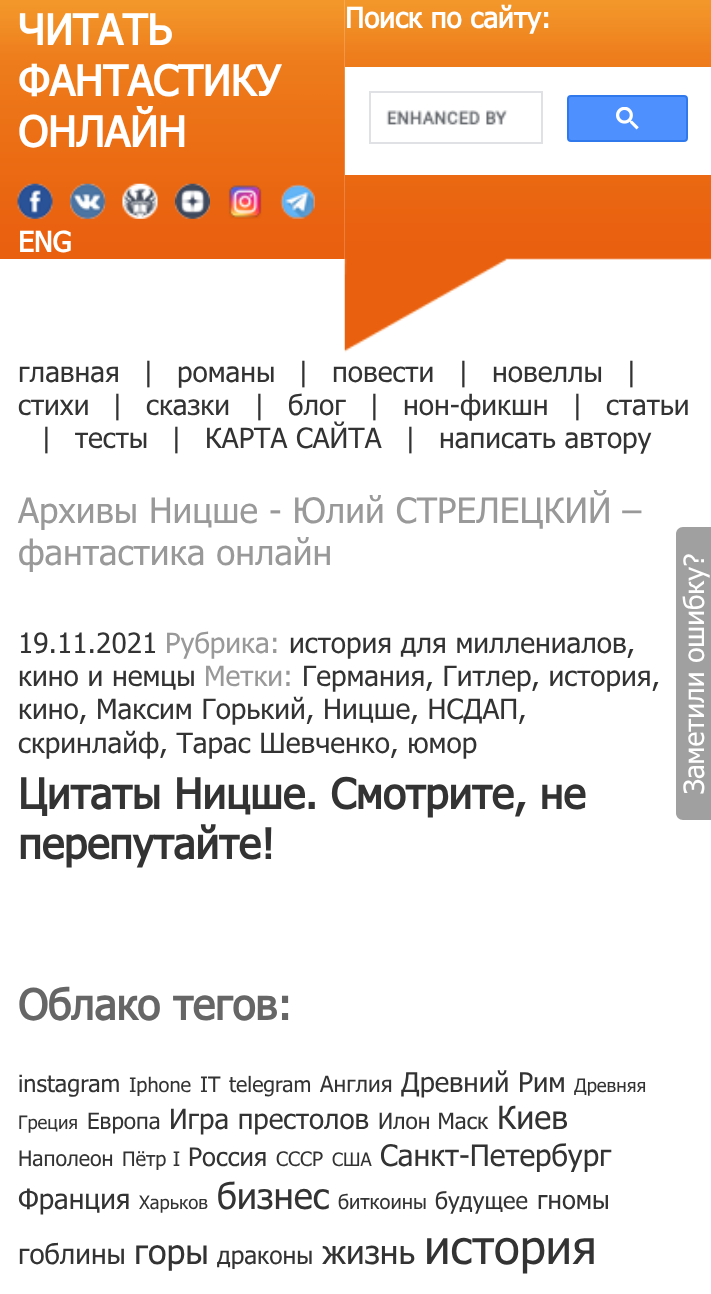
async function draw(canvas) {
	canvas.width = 711;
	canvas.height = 1294;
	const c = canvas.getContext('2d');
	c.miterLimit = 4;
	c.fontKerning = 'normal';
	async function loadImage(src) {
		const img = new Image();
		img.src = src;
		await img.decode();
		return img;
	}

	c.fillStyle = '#fff';
	c.fillRect(0, 0, 711, 1294);
	c.drawImage(await loadImage('img1.png'), 0, 0, 345, 259);
	c.font = 'bold 42px Tahoma';
	for (const [text, x, y] of [
		['ЧИТАТЬ', 18, 45],
		['ФАНТАСТИКУ', 18, 96],
		['ОНЛАЙН', 18, 147],
	]) {
		c.fillText(text, x, y);
	}
	c.drawImage(await loadImage('img2.png'), 17, 183, 36, 36);
	c.drawImage(await loadImage('img3.png'), 70, 183, 35, 36);
	c.drawImage(await loadImage('img4.png'), 122, 183, 36, 36);
	c.drawImage(await loadImage('img5.png'), 175, 183, 35, 36);
	c.drawImage(await loadImage('img6.png'), 228, 185, 34, 34);
	c.drawImage(await loadImage('img7.png'), 280, 184, 35, 35);
	c.font = 'bold 28px Tahoma';
	c.fillText('ENG', 18, 252);
	c.drawImage(await loadImage('img8.png'), 344, 0, 367, 353);
	c.fillText('Поиск по сайту:', 345, 28);
	c.fillRect(345, 67, 366, 108);
	c.strokeStyle = '#dfe1e5';
	c.lineWidth = 2;
	c.strokeRect(370, 92, 172, 51);
	c.drawImage(await loadImage('img9.png'), 386, 110, 122, 15);
	c.fillStyle = '#4d90fe';
	c.beginPath();
	c.roundRect(568, 96, 119, 45, 3);
	c.fill();
	c.strokeStyle = '#3079ed';
	c.stroke();
	c.drawImage(await loadImage('img10.png'), 616, 107, 23, 23);
	c.font = '28px Tahoma';
	c.fillStyle = '#333';
	for (const [text, x, y] of [
		['главная', 18, 382],
		['|', 143, 382],
		['романы', 177, 382],
		['|', 298, 382],
		['повести', 332, 382],
		['|', 458, 382],
		['новеллы', 492, 382],
		['|', 626, 382],
		['стихи', 18, 415],
		['|', 112, 415],
		['сказки', 146, 415],
		['|', 254, 415],
		['блог', 288, 415],
		['|', 369, 415],
		['нон-фикшн', 403, 415],
		['|', 572, 415],
		['статьи', 606, 415],
		['|', 41, 448],
		['тесты', 75, 448],
		['|', 171, 448],
		['КАРТА САЙТА', 205, 448],
		['|', 405, 448],
		['написать автору', 439, 448],
	]) {
		c.fillText(text, x, y);
	}
	c.font = '35px Tahoma';
	c.fillStyle = '#999';
	c.fillText('Архивы Ницше - Юлий СТРЕЛЕЦКИЙ –', 18, 523);
	c.fillText('фантастика онлайн', 18, 565);
	c.font = '28px Tahoma';
	c.fillStyle = '#333';
	c.fillText('19.11.2021', 18, 653);
	c.fillStyle = '#999';
	c.fillText('Рубрика:', 165, 653);
	c.fillStyle = '#333';
	c.fillText('история для миллениалов,', 289, 653);
	c.fillText('кино и немцы', 18, 686);
	c.fillStyle = '#999';
	c.fillText('Метки:', 204, 686);
	c.fillStyle = '#333';
	for (const [text, x, y] of [
		['Германия, Гитлер, история,', 302, 686],
		['кино, Максим Горький, Ницше, НСДАП,', 18, 719],
		['скринлайф, Тарас Шевченко, юмор', 18, 753],
	]) {
		c.fillText(text, x, y);
	}
	c.font = 'bold 42px Tahoma';
	c.fillText('Цитаты Ницше. Смотрите, не', 18, 809);
	c.fillText('перепутайте!', 18, 859);
	c.fillStyle = '#666';
	c.fillText('Облако тегов:', 18, 1020);
	c.font = '23.5px Tahoma';
	c.fillStyle = '#333';
	c.fillText('instagram', 18, 1092);
	c.font = '20px Tahoma';
	c.fillText('Iphone', 129, 1092);
	c.font = '21.25px Tahoma';
	c.fillText('IT', 200, 1092);
	c.fillText('telegram', 229, 1092);
	c.font = '22.5px Tahoma';
	c.fillText('Англия', 320, 1092);
	c.font = '27.25px Tahoma';
	c.fillText('Древний Рим', 401, 1092);
	c.font = '18.5px Tahoma';
	c.fillText('Древняя', 574, 1092);
	c.fillText('Греция', 18, 1129);
	c.font = '22.5px Tahoma';
	c.fillText('Европа', 87, 1129);
	c.font = '27.75px Tahoma';
	c.fillText('Игра престолов', 169, 1129);
	c.font = '22.5px Tahoma';
	c.fillText('Илон Маск', 378, 1129);
	c.font = '32px Tahoma';
	c.fillText('Киев', 497, 1129);
	c.font = '21.25px Tahoma';
	c.fillText('Наполеон', 18, 1166);
	c.font = '20px Tahoma';
	c.fillText('Пётр I', 122, 1166);
	c.font = '25.5px Tahoma';
	c.fillText('Россия', 188, 1166);
	c.font = '20px Tahoma';
	c.fillText('СССР', 276, 1166);
	c.font = '18.5px Tahoma';
	c.fillText('США', 332, 1166);
	c.font = '29.75px Tahoma';
	c.fillText('Санкт-Петербург', 380, 1166);
	c.font = '27.75px Tahoma';
	c.fillText('Франция', 18, 1209);
	c.font = '18.5px Tahoma';
	c.fillText('Харьков', 139, 1209);
	c.font = '36px Tahoma';
	c.fillText('бизнес', 217, 1209);
	c.font = '20px Tahoma';
	c.fillText('биткоины', 338, 1209);
	c.font = '23.5px Tahoma';
	c.fillText('будущее', 435, 1209);
	c.font = '25.5px Tahoma';
	c.fillText('гномы', 537, 1209);
	c.font = '27.75px Tahoma';
	c.fillText('гоблины', 18, 1264);
	c.font = '34px Tahoma';
	c.fillText('горы', 134, 1264);
	c.font = '24.5px Tahoma';
	c.fillText('драконы', 217, 1264);
	c.font = '33px Tahoma';
	c.fillText('жизнь', 322, 1264);
	c.font = '47px Tahoma';
	c.fillText('история', 424, 1264);
	c.fillStyle = '#a0a0a0';
	c.beginPath();
	c.moveTo(676, 813);
	c.lineTo(676, 534);
	c.bezierCurveTo(676, 530, 679, 527, 683, 527);
	c.lineTo(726, 527);
	c.bezierCurveTo(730, 527, 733, 530, 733, 534);
	c.lineTo(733, 813);
	c.bezierCurveTo(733, 817, 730, 820, 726, 820);
	c.lineTo(683, 820);
	c.bezierCurveTo(679, 820, 676, 817, 676, 813);
	c.closePath();
	c.fill();
	c.font = '28px Tahoma';
	c.fillStyle = '#fff';
	c.save();
	c.translate(704, 794);
	c.rotate(-90 * Math.PI / 180);
	c.fillText('Заметили ошибку?', 0, 0);
	c.restore();
}

draw(document.querySelector('canvas'));
